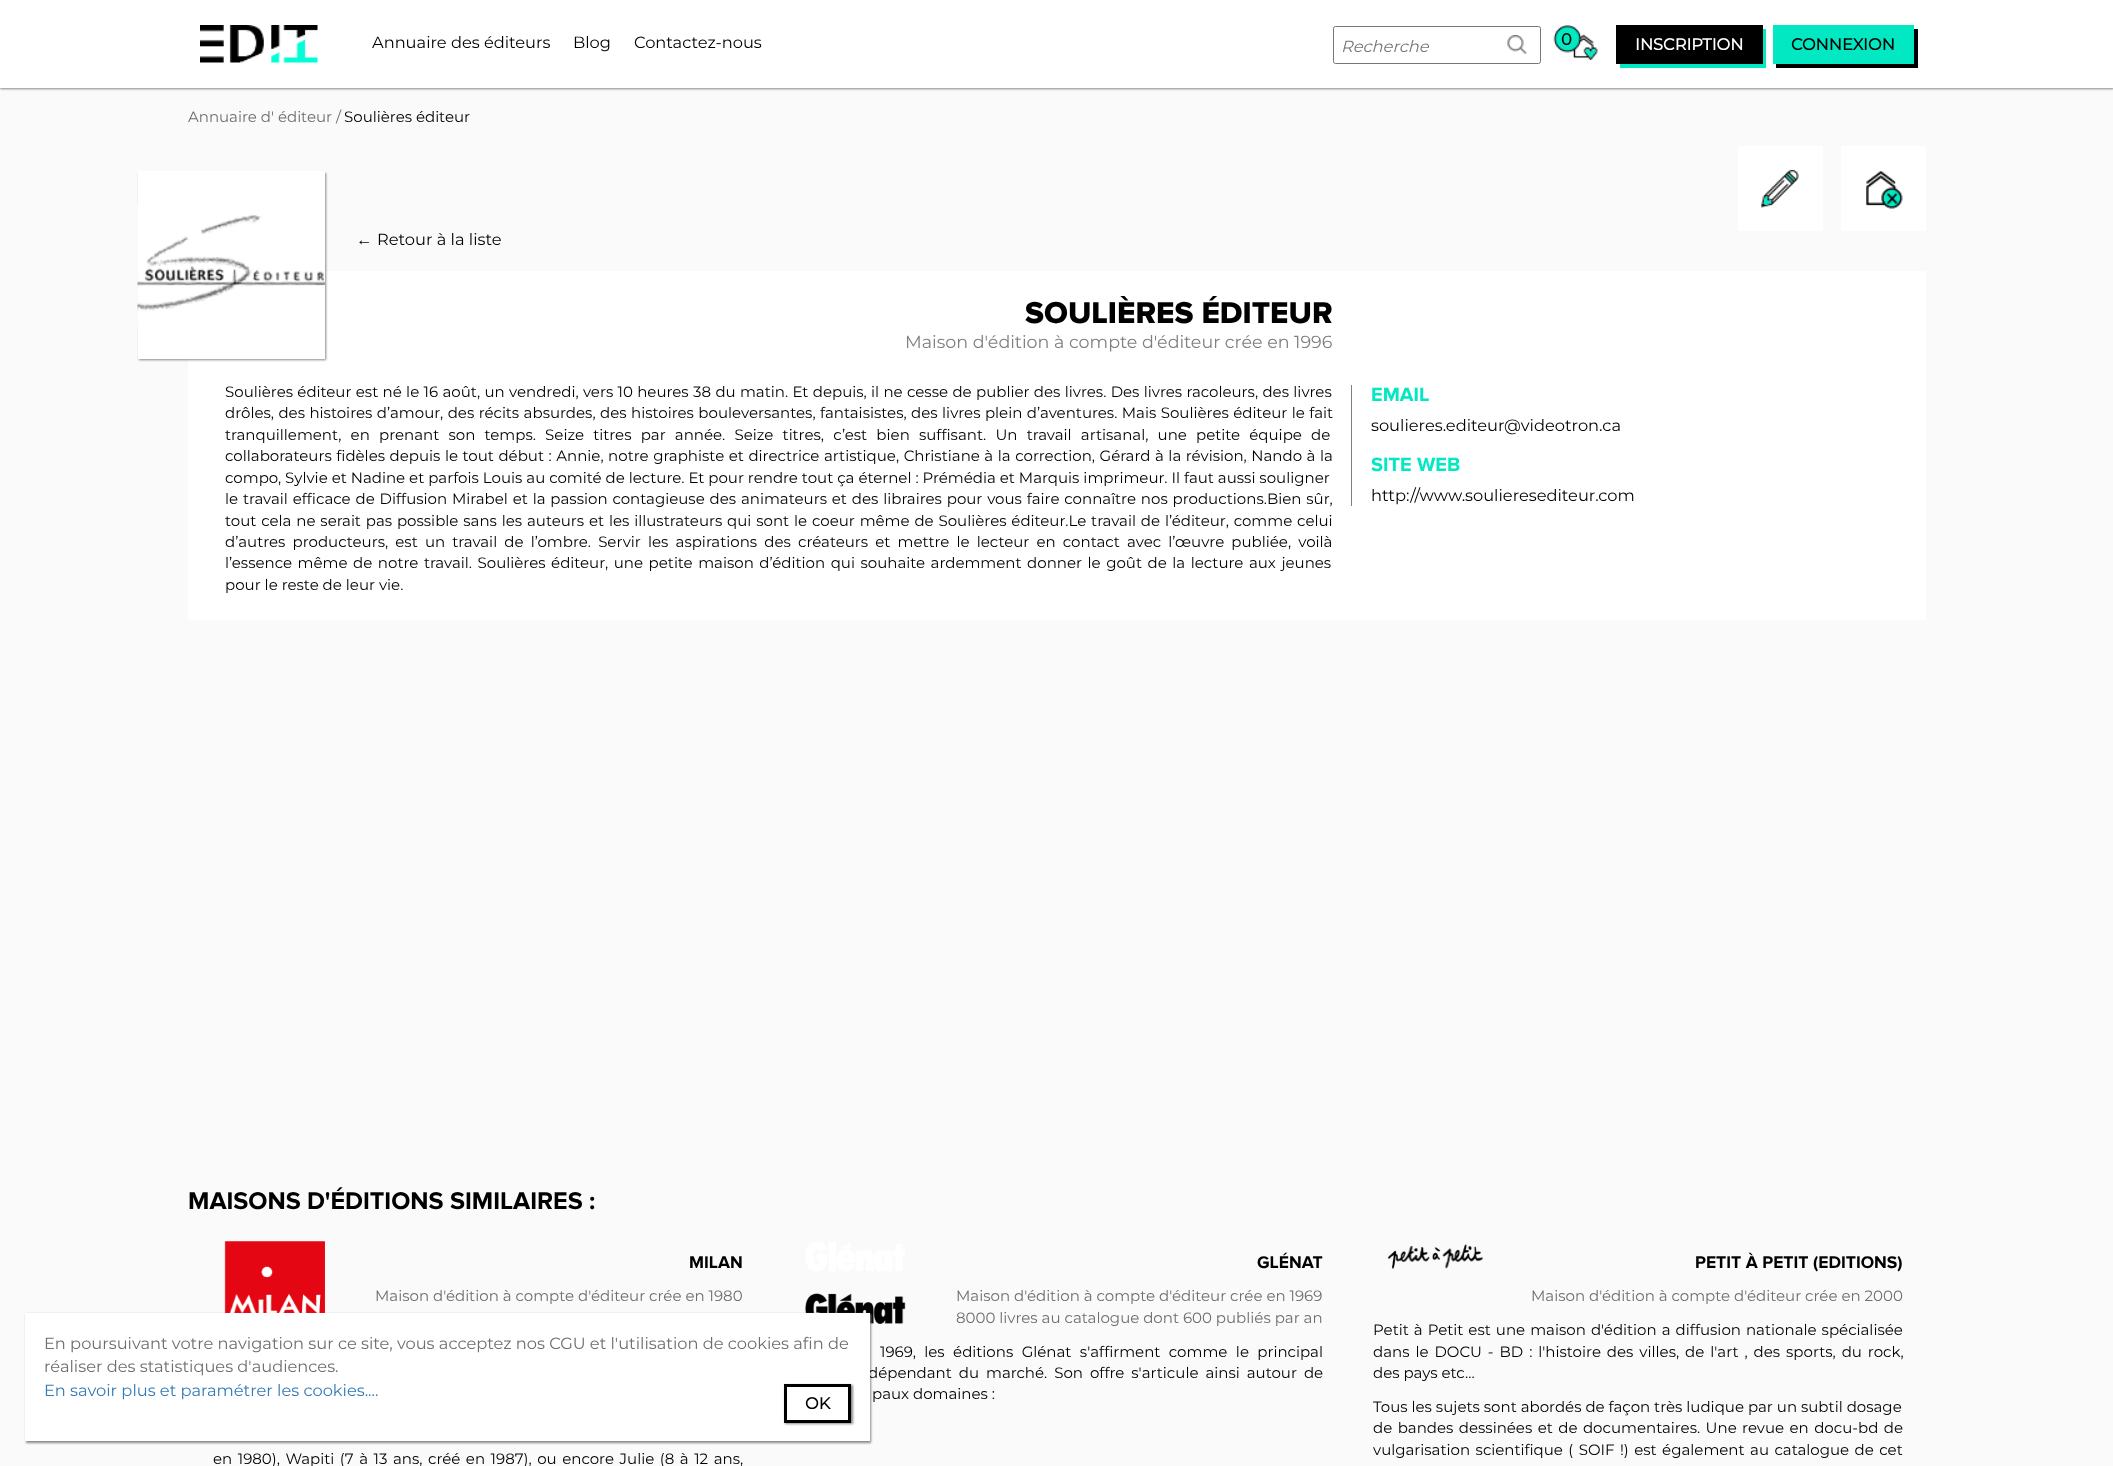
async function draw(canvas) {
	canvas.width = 2113;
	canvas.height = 1466;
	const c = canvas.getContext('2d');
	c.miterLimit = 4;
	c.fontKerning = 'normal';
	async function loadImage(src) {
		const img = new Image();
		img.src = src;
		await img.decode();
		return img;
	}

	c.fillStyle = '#fafafa';
	c.fillRect(0, 0, 2113, 1466);
	c.fillStyle = '#888';
	c.filter = 'blur(1px)';
	c.beginPath();
	c.rect(0, 1, 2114, 88);
	c.fill();
	c.filter = 'none';
	c.fillStyle = '#fff';
	c.fillRect(0, 0, 2113, 88);
	c.drawImage(await loadImage('img1.png'), 200, 25, 118, 38);
	c.drawImage(await loadImage('img2.png'), 1553, 25, 45, 35);
	c.font = 'bold 16.25px Montserrat';
	c.fillStyle = '#000';
	c.fillText('0', 1561, 45);
	c.fillStyle = '#02e8c3';
	c.beginPath();
	c.moveTo(1620, 64);
	c.lineTo(1620, 68);
	c.lineTo(1766, 68);
	c.lineTo(1766, 29);
	c.lineTo(1762, 29);
	c.lineTo(1762, 64);
	c.closePath();
	c.fill();
	c.fillStyle = '#000';
	c.fillRect(1616, 25, 147, 39);
	c.fillStyle = '#fff';
	c.fillText('INSCRIPTION', 1635, 50);
	c.fillStyle = '#000';
	c.beginPath();
	c.moveTo(1776, 64);
	c.lineTo(1776, 68);
	c.lineTo(1918, 68);
	c.lineTo(1918, 29);
	c.lineTo(1914, 29);
	c.lineTo(1914, 64);
	c.closePath();
	c.fill();
	c.fillStyle = '#02e8c3';
	c.fillRect(1773, 25, 141, 39);
	c.fillStyle = '#000';
	c.fillText('CONNEXION', 1791, 50);
	c.drawImage(await loadImage('img7.png'), 224, 1241, 101, 72);
	c.drawImage(await loadImage('img8.png'), 805, 1242, 101, 82);
	c.fillStyle = '#888';
	c.filter = 'blur(1px)';
	c.beginPath();
	c.rect(26, 1314, 845, 129);
	c.fill();
	c.filter = 'none';
	c.wordSpacing = '3px';
	c.font = '100 15px Montserrat';
	c.fillStyle = '#000';
	c.fillText('dépendant du marché. Son offre s\'articule ainsi autour de', 868, 1378);
	c.fillStyle = '#fff';
	c.fillRect(25, 1313, 845, 128);
	c.wordSpacing = '0px';
	c.font = '100 16.25px Montserrat';
	c.fillStyle = '#6e6e6e';
	c.fillText('En poursuivant votre navigation sur ce site, vous acceptez nos CGU et l\'utilisation de cookies afin de', 44, 1349);
	c.fillText('réaliser des statistiques d\'audiences.', 44, 1372);
	c.fillStyle = '#337ab7';
	c.fillText('En savoir plus et paramétrer les cookies...', 44, 1396);
	c.fillStyle = '#6e6e6e';
	c.fillText('.', 375, 1396);
	c.save();
	c.beginPath();
	c.moveTo(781, 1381);
	c.lineTo(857, 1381);
	c.lineTo(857, 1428);
	c.lineTo(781, 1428);
	c.closePath();
	c.moveTo(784, 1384);
	c.lineTo(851, 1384);
	c.lineTo(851, 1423);
	c.lineTo(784, 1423);
	c.closePath();
	c.clip('evenodd');
	c.fillStyle = '#888';
	c.filter = 'blur(1px)';
	c.beginPath();
	c.rect(785, 1385, 68, 39);
	c.fill();
	c.filter = 'none';
	c.restore();
	c.strokeStyle = '#000';
	c.lineWidth = 3;
	c.strokeRect(785.5, 1385.5, 64, 36);
	c.font = 'bold 16.25px Montserrat';
	c.fillStyle = '#000';
	c.fillText('OK', 805, 1409);
	c.beginPath();
	c.roundRect(1333.5, 26.5, 207, 37, 2);
	c.strokeStyle = '#767676';
	c.lineWidth = 1;
	c.stroke();
	c.font = 'italic 100 16.25px Montserrat';
	c.fillStyle = '#757575';
	c.fillText('Recherche', 1341, 52);
	c.drawImage(await loadImage('img3.png'), 1507, 35, 20, 19);
	c.font = '100 16.25px Montserrat';
	c.fillStyle = '#000';
	for (const [text, x, y] of [
		['Annuaire des éditeurs', 372, 48],
		['Blog', 573, 48],
		['Contactez-nous', 634, 48],
	]) {
		c.fillText(text, x, y);
	}
	c.font = '100 15px Montserrat';
	c.fillStyle = '#6e6e6e';
	c.fillText('Annuaire d\' éditeur /', 188, 122);
	c.fillStyle = '#000';
	c.fillText('Soulières éditeur', 344, 122);
	c.fillStyle = '#fff';
	c.fillRect(1738, 146, 85, 85);
	c.drawImage(await loadImage('img4.png'), 1761, 169, 38, 39);
	c.fillRect(1841, 146, 85, 85);
	c.drawImage(await loadImage('img5.png'), 1866, 171, 37, 38);
	c.font = '16.25px Liberation Sans';
	c.fillStyle = '#000';
	c.fillText('←', 356, 245);
	c.font = '100 16.25px Montserrat';
	c.fillText('Retour à la liste', 377, 245);
	c.fillStyle = '#fff';
	c.fillRect(188, 271, 1738, 349);
	c.fillStyle = '#888';
	c.filter = 'blur(1px)';
	c.beginPath();
	c.rect(139, 173, 187, 187);
	c.fill();
	c.filter = 'none';
	c.fillStyle = '#fff';
	c.fillRect(138, 171, 187, 188);
	c.drawImage(await loadImage('img6.png'), 137, 203, 188, 124);
	c.font = '800 31.25px Proxima Nova';
	c.fillStyle = '#000';
	c.fillText('SOULIÈRES ÉDITEUR', 1025, 323);
	c.font = '100 17.5px Montserrat';
	c.fillStyle = '#7f7f7f';
	c.fillText('Maison d\'édition à compte d\'éditeur crée en 1996', 905, 348);
	c.wordSpacing = '0.4px';
	c.font = '100 15px Montserrat';
	c.fillStyle = '#000';
	c.fillText('Soulières éditeur est né le 16 août, un vendredi, vers 10 heures 38 du matin. Et depuis, il ne cesse de publier des livres. Des livres racoleurs, des livres', 225, 397);
	c.wordSpacing = '0.5px';
	c.fillText('drôles, des histoires d’amour, des récits absurdes, des histoires bouleversantes, fantaisistes, des livres plein d’aventures. Mais Soulières éditeur le fait', 225, 418);
	c.wordSpacing = '5.25px';
	c.fillText('tranquillement, en prenant son temps. Seize titres par année. Seize titres, c’est bien suffisant. Un travail artisanal, une petite équipe de', 225, 440);
	c.wordSpacing = '0.6px';
	c.fillText('collaborateurs fidèles depuis le tout début : Annie, notre graphiste et directrice artistique, Christiane à la correction, Gérard à la révision, Nando à la', 225, 461);
	c.wordSpacing = '0px';
	c.fillText('compo, Sylvie et Nadine et parfois Louis au comité de lecture. Et pour rendre tout ça éternel : Prémédia et Marquis imprimeur. Il faut aussi souligner', 225, 483);
	c.wordSpacing = '0.9px';
	c.fillText('le travail efficace de Diffusion Mirabel et la passion contagieuse des animateurs et des libraires pour vous faire connaître nos productions.Bien sûr,', 225, 504);
	c.fillText('tout cela ne serait pas possible sans les auteurs et les illustrateurs qui sont le coeur même de Soulières éditeur.Le travail de l’éditeur, comme celui', 225, 526);
	c.wordSpacing = '3.2px';
	c.fillText('d’autres producteurs, est un travail de l’ombre. Servir les aspirations des créateurs et mettre le lecteur en contact avec l’œuvre publiée, voilà', 225, 547);
	c.wordSpacing = '1.6px';
	c.fillText('l’essence même de notre travail. Soulières éditeur, une petite maison d’édition qui souhaite ardemment donner le goût de la lecture aux jeunes', 225, 568);
	c.wordSpacing = '0px';
	c.fillText('pour le reste de leur vie.', 225, 590);
	c.fillStyle = '#7f7f7f';
	c.fillRect(1351, 385, 1, 121);
	c.font = 'bold 20px Proxima Nova';
	c.fillStyle = '#02e8c3';
	c.fillText('EMAIL', 1371, 401);
	c.font = '100 16.25px Montserrat';
	c.fillStyle = '#000';
	c.fillText('soulieres.editeur@videotron.ca', 1371, 431);
	c.font = 'bold 20px Proxima Nova';
	c.fillStyle = '#02e8c3';
	c.fillText('SITE WEB', 1371, 471);
	c.font = '100 16.25px Montserrat';
	c.fillStyle = '#000';
	c.fillText('http://www.soulieresediteur.com', 1371, 501);
	c.font = 'bold 25px Proxima Nova';
	c.fillText('MAISONS D\'ÉDITIONS SIMILAIRES :', 188, 1209);
	c.font = 'bold 17.5px Proxima Nova';
	c.fillText('MILAN', 689, 1268);
	c.font = '100 15px Montserrat';
	c.fillStyle = '#6e6e6e';
	c.fillText('Maison d\'édition à compte d\'éditeur crée en 1980', 375, 1301);
	c.wordSpacing = '1.6px';
	c.fillStyle = '#000';
	c.fillText('en 1980), Wapiti (7 à 13 ans, créé en 1987), ou encore Julie (8 à 12 ans,', 213, 1464);
	c.wordSpacing = '0px';
	c.font = 'bold 17.5px Proxima Nova';
	c.fillText('GLÉNAT', 1257, 1268);
	c.font = '100 15px Montserrat';
	c.fillStyle = '#6e6e6e';
	c.fillText('Maison d\'édition à compte d\'éditeur crée en 1969', 956, 1301);
	c.fillText('8000 livres au catalogue dont 600 publiés par an', 956, 1323);
	c.wordSpacing = '4.5px';
	c.fillStyle = '#000';
	c.fillText('1969, les éditions Glénat s\'affirment comme le principal', 880, 1357);
	c.wordSpacing = '0px';
	c.fillText('paux domaines :', 872, 1399);
	c.drawImage(await loadImage('img9.png'), 1387, 1244, 96, 25);
	c.font = 'bold 17.5px Proxima Nova';
	c.fillText('PETIT À PETIT (EDITIONS)', 1695, 1268);
	c.font = '100 15px Montserrat';
	c.fillStyle = '#6e6e6e';
	c.fillText('Maison d\'édition à compte d\'éditeur crée en 2000', 1531, 1301);
	c.wordSpacing = '1.1px';
	c.fillStyle = '#000';
	c.fillText('Petit à Petit est une maison d\'édition a diffusion nationale spécialisée', 1373, 1335);
	c.wordSpacing = '2px';
	c.fillText('dans le DOCU - BD : l\'histoire des villes, de l\'art , des sports, du rock,', 1373, 1357);
	c.wordSpacing = '0px';
	c.fillText('des pays etc...', 1373, 1378);
	c.fillText('Tous les sujets sont abordés de façon très ludique par un subtil dosage', 1373, 1412);
	c.wordSpacing = '1.5px';
	c.fillText('de bandes dessinées et de documentaires. Une revue en docu-bd de', 1373, 1433);
	c.fillText('vulgarisation scientifique ( SOIF !) est également au catalogue de cet', 1373, 1455);
}

draw(document.querySelector('canvas'));
